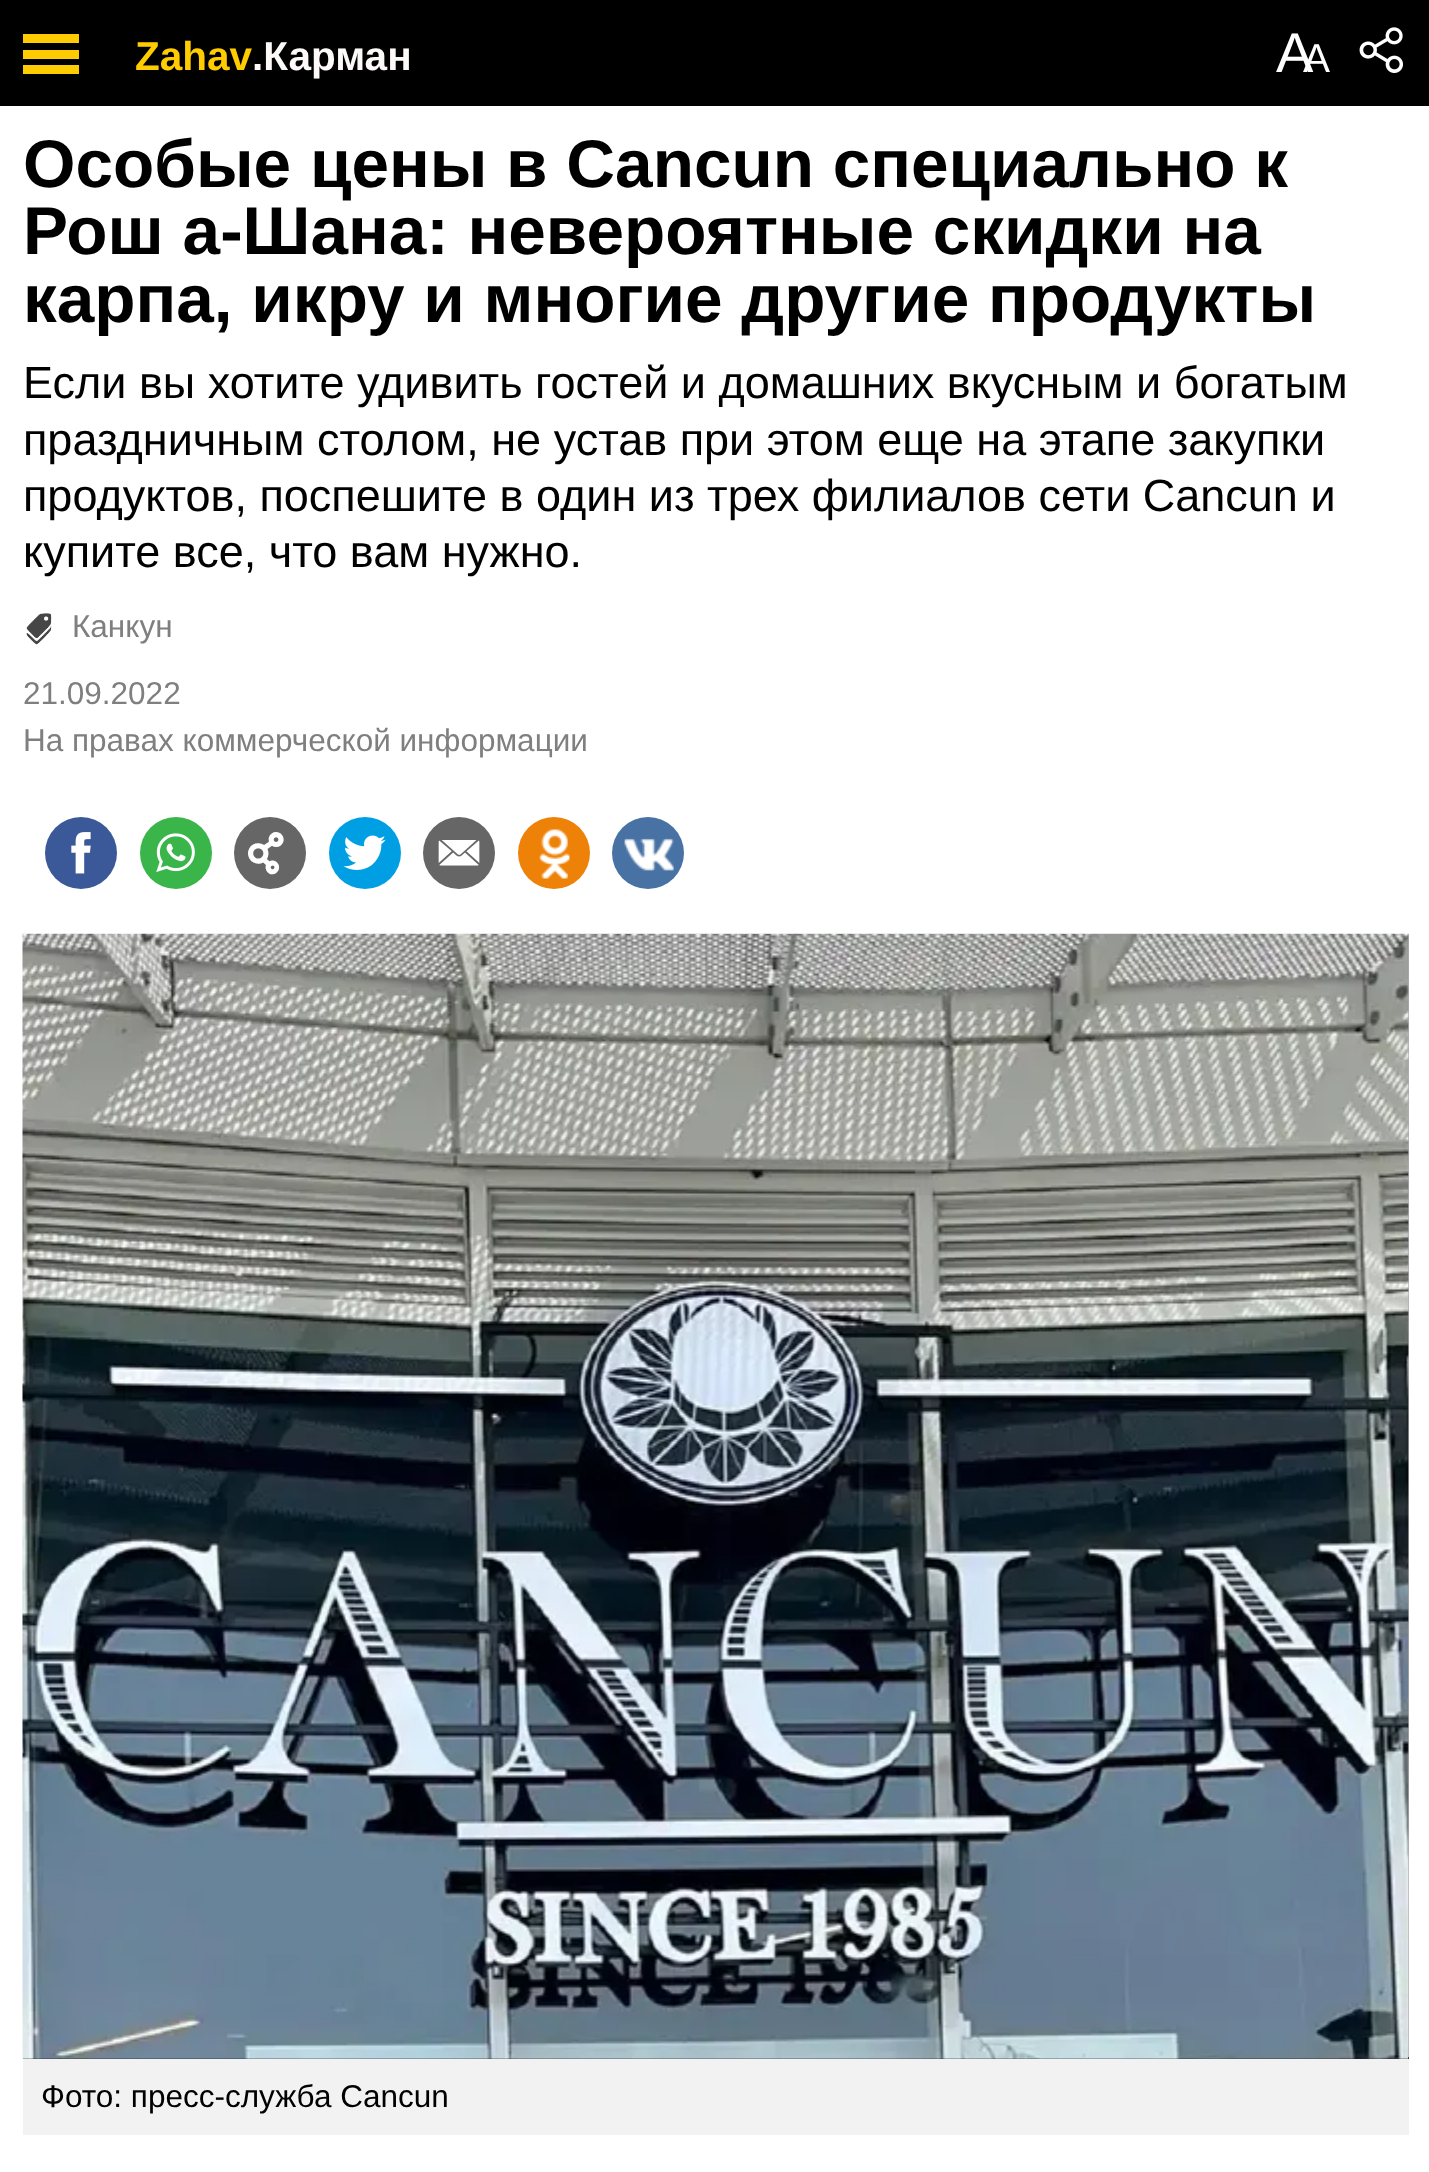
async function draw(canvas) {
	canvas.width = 1429;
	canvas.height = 2172;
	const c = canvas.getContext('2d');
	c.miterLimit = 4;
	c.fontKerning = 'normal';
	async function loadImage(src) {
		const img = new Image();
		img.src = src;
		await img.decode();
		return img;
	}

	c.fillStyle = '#fff';
	c.fillRect(0, 0, 1429, 2172);
	c.fillStyle = '#000';
	c.fillRect(0, 0, 1429, 106);
	c.font = '40.5px Liberation Sans';
	c.fillStyle = '#fff';
	c.fillText('А', 1303, 72);
	c.font = '56px Liberation Sans';
	c.fillText('А', 1276, 72);
	c.drawImage(await loadImage('img1.png'), 1359, 27, 44, 46);
	c.font = 'bold 67.5px Liberation Sans';
	c.fillStyle = '#000';
	for (const [text, x, y] of [
		['Особые цены в Cancun специально к', 23, 187],
		['Рош а-Шана: невероятные скидки на', 23, 254],
		['карпа, икру и многие другие продукты', 23, 322],
	]) {
		c.fillText(text, x, y);
	}
	c.font = '45px Liberation Sans';
	for (const [text, x, y] of [
		['Если вы хотите удивить гостей и домашних вкусным и богатым', 23, 398],
		['праздничным столом, не устав при этом еще на этапе закупки', 23, 455],
		['продуктов, поспешите в один из трех филиалов сети Cancun и', 23, 511],
		['купите все, что вам нужно.', 23, 567],
	]) {
		c.fillText(text, x, y);
	}
	c.drawImage(await loadImage('img2.png'), 26, 613, 26, 32);
	c.font = '31.5px Liberation Sans';
	c.fillStyle = '#7f7f7f';
	for (const [text, x, y] of [
		['Канкун', 72, 637],
		['21.09.2022', 23, 704],
		['На правах коммерческой информации', 23, 751],
	]) {
		c.fillText(text, x, y);
	}
	c.fillStyle = '#3b5998';
	c.beginPath();
	c.arc(81, 853, 36, 0, 2 * Math.PI);
	c.fill();
	c.drawImage(await loadImage('img3.png'), 71, 832, 20, 42);
	c.fillStyle = '#39b54a';
	c.beginPath();
	c.arc(176, 853, 36, 0, 2 * Math.PI);
	c.fill();
	c.drawImage(await loadImage('img4.png'), 156, 833, 39, 39);
	c.fillStyle = '#666';
	c.beginPath();
	c.arc(270, 853, 36, 0, 2 * Math.PI);
	c.fill();
	c.font = '45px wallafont';
	c.fillStyle = '#fff';
	c.fillText('0', 248, 869);
	c.fillStyle = '#009fe4';
	c.beginPath();
	c.arc(365, 853, 36, 0, 2 * Math.PI);
	c.fill();
	c.drawImage(await loadImage('img5.png'), 343, 835, 43, 35);
	c.fillStyle = '#666';
	c.beginPath();
	c.arc(459, 853, 36, 0, 2 * Math.PI);
	c.fill();
	c.drawImage(await loadImage('img6.png'), 438, 840, 42, 26);
	c.fillStyle = '#ee8208';
	c.beginPath();
	c.arc(554, 853, 36, 0, 2 * Math.PI);
	c.fill();
	c.drawImage(await loadImage('img7.png'), 539, 829, 31, 50);
	c.fillStyle = '#4872a3';
	c.beginPath();
	c.arc(648, 853, 36, 0, 2 * Math.PI);
	c.fill();
	c.drawImage(await loadImage('img8.png'), 624, 838, 50, 33);
	c.fillStyle = '#e5e5e5';
	c.fillRect(1408, 934, 1, 1123);
	c.fillStyle = '#000';
	c.fillRect(23, 2057, 1386, 2);
	c.drawImage(await loadImage('img9.png'), 22, 933, 1387, 1126);
	c.fillStyle = '#f2f2f2';
	c.fillRect(23, 2059, 1386, 76);
	c.font = '31.5px Liberation Sans';
	c.fillStyle = '#000';
	c.fillText('Фото: пресс-служба Cancun', 41, 2107);
	for (const [x, y, w, h, color] of [
		[23, 34, 56, 9, '#ffcc01'],
		[23, 50, 56, 9, '#ffcc01'],
		[23, 65, 56, 9, '#ffcc01'],
	]) {
		c.fillStyle = color;
		c.fillRect(x, y, w, h);
	}
	c.font = 'bold 40.5px Liberation Sans';
	c.fillText('Zahav', 135, 70);
	c.fillStyle = '#fdf9f9';
	c.fillText('.Карман', 252, 70);
}

draw(document.querySelector('canvas'));
